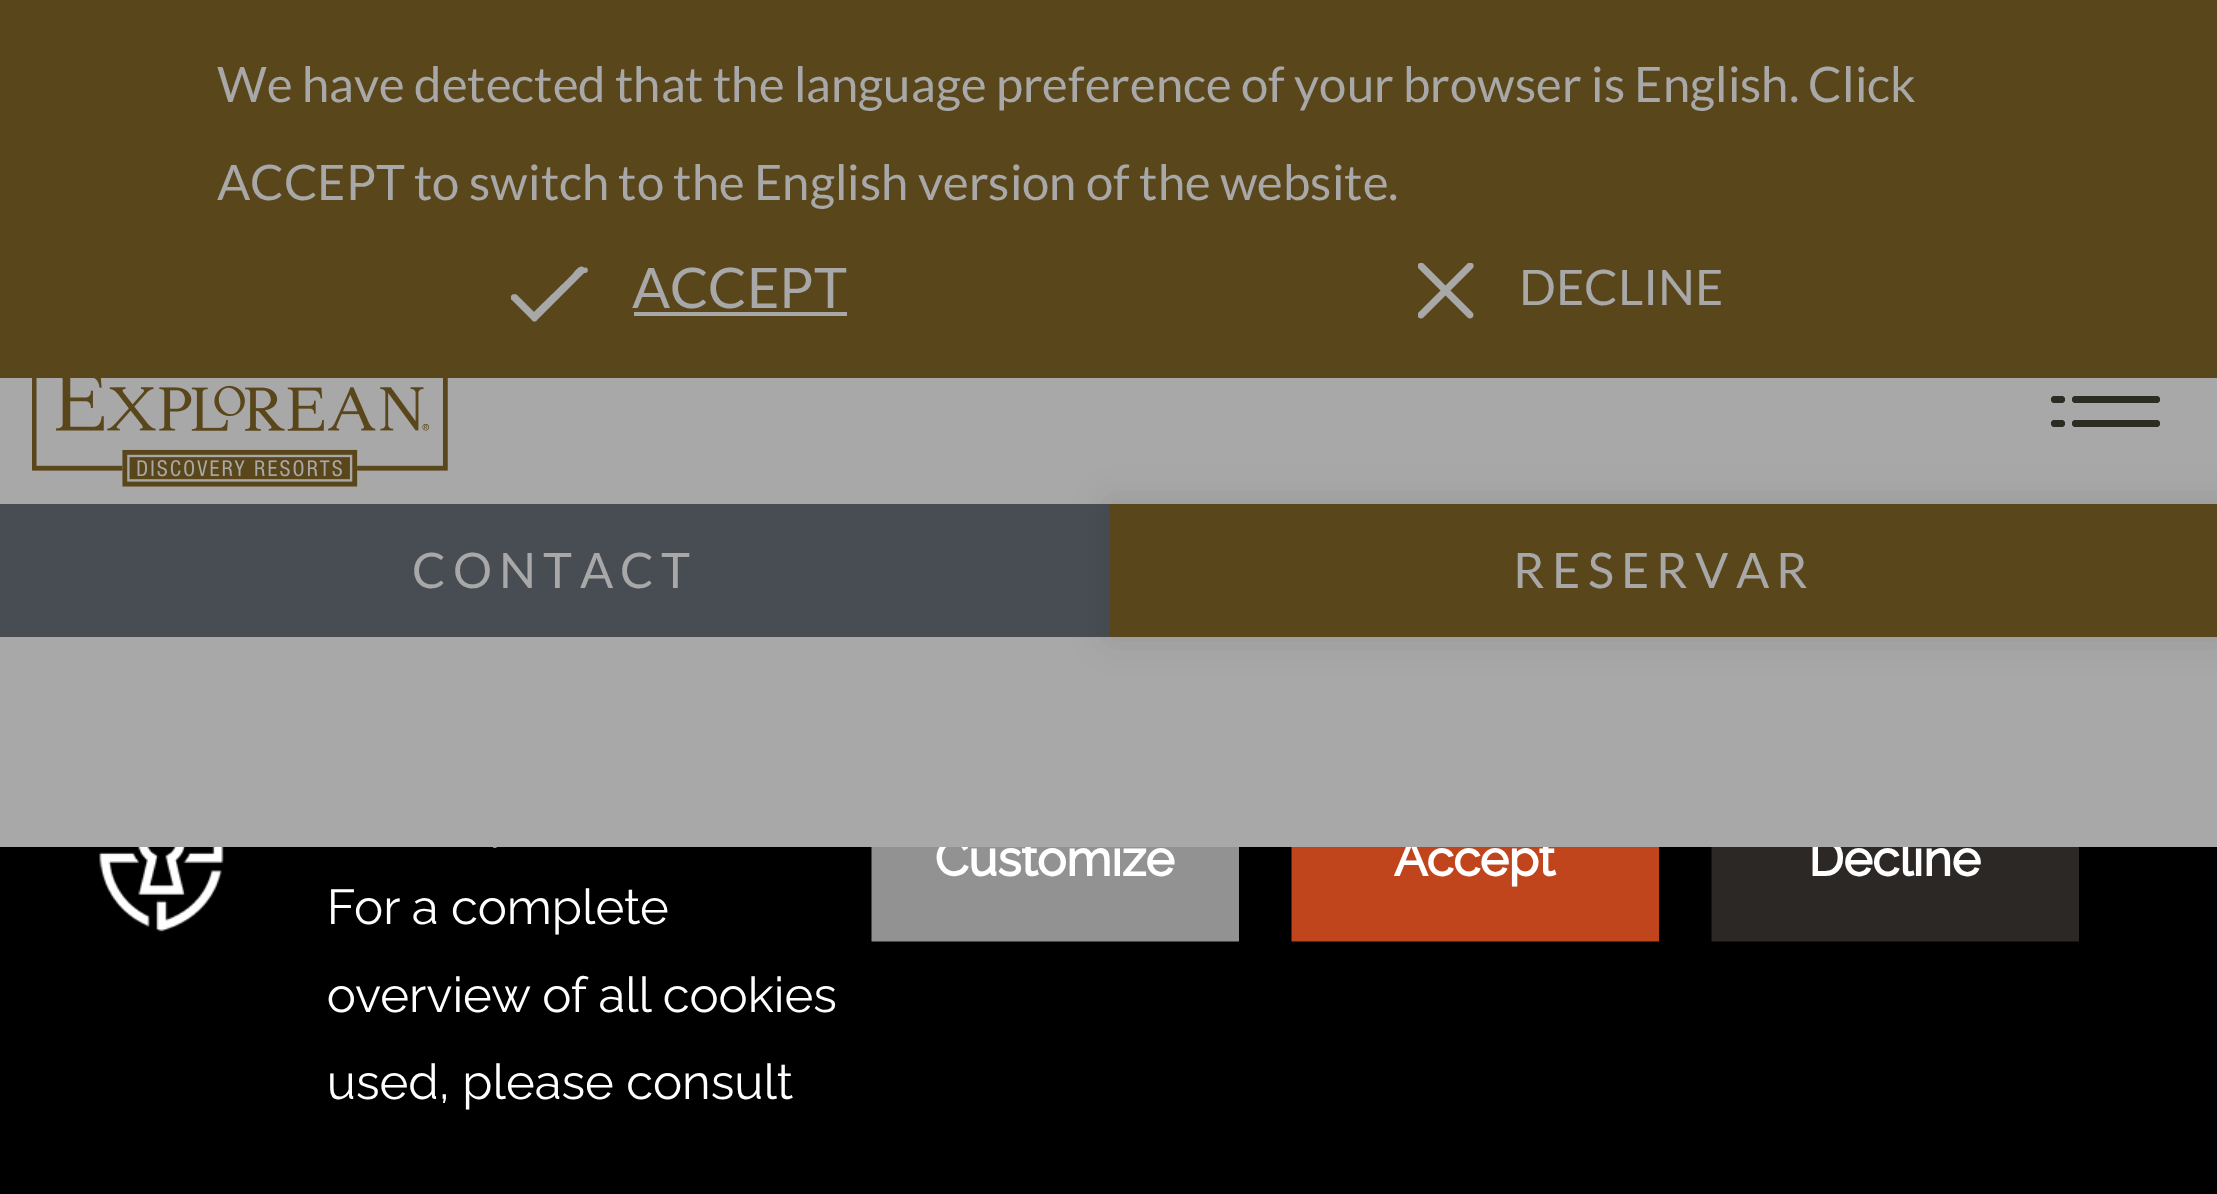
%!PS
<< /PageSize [2217 1194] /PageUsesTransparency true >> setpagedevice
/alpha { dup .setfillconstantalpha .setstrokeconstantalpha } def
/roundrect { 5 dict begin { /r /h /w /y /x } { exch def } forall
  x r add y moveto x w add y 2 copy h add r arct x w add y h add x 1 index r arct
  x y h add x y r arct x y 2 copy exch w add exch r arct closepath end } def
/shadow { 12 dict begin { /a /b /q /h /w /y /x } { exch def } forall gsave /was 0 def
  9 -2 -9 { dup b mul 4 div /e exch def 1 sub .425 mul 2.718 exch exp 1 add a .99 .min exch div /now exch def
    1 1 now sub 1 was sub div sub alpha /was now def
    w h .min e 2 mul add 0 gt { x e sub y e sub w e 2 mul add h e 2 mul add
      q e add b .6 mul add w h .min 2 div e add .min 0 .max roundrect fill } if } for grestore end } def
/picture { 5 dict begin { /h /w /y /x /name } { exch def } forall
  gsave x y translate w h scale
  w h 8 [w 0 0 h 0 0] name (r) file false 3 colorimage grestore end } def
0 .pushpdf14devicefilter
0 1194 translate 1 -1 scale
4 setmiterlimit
0.659 setgray
0 0 2217 1194 rectfill
0.353 0.275 0.106 setrgbcolor
0 0 2217 378 rectfill
/Lato-Regular [49 0 0 -49 0 0] selectfont
0.659 setgray
217 102 moveto (We have detected that the language preference of your browser is English. Click) show
217 200 moveto (ACCEPT to switch to the English version of the website.) show
gsave
511 266 77 56 rectclip
newpath 584 268 moveto 580 263 573 274 572 275 curveto 534 312 lineto 517 295 lineto 516 294 513 294 512 295 curveto 510 297 510 299 512 300 curveto 532 320 lineto 533 322 536 322 537 320 curveto 584 273 lineto 590 273 588 266 584 268 curveto closepath fill
grestore
/Lato-Regular [56 0 0 -56 0 0] selectfont
632 308 moveto (ACCEPT) show
634 312 213 4 rectfill
(img1.rgb) 1418 263 56 56 picture
/Lato-Regular [49 0 0 -49 0 0] selectfont
1519 305 moveto (DECLINE) show
(img2.rgb) 32 378 416 109 picture
0.176 0.173 0.133 setrgbcolor
2072 396 88 7 3.5 roundrect fill
2051 396 14 7 3.5 roundrect fill
2072 420 88 7 3.5 roundrect fill
2051 420 14 7 3.5 roundrect fill
0.278 0.302 0.322 setrgbcolor
0 504 1110 133 rectfill
0.659 setgray
412 588 moveto 7.25 0 (CONTACT) ashow
0 setgray
1110 504 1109 133 0 17.5 0.1 shadow
0.353 0.275 0.106 setrgbcolor
1110 504 1107 133 rectfill
0.659 setgray
1513 588 moveto 7.25 0 (RESERVAR) ashow
(img3.rgb) 0 847 2217 347 picture
.poppdf14devicefilter showpage
